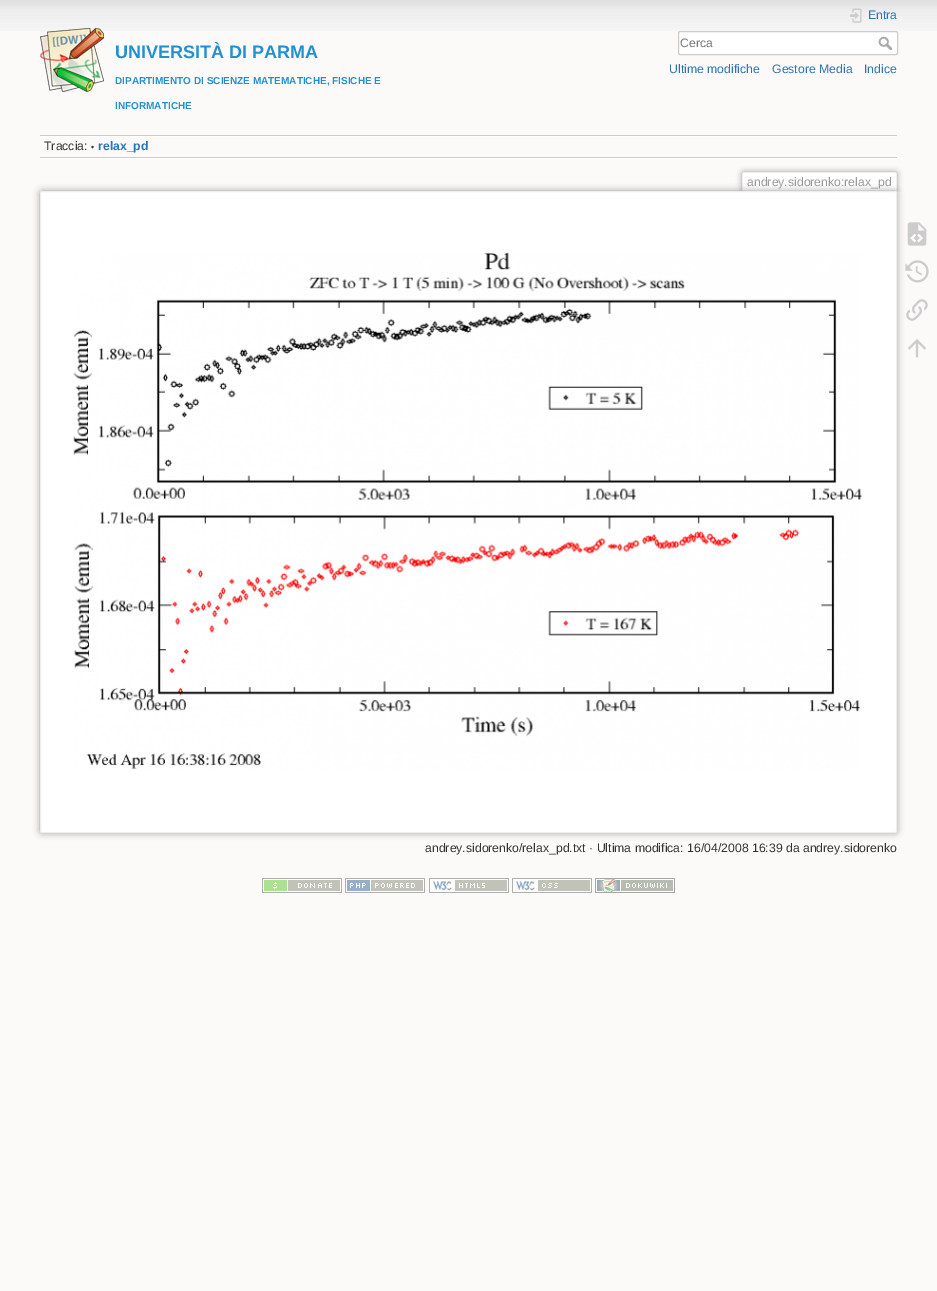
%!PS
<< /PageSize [937 1291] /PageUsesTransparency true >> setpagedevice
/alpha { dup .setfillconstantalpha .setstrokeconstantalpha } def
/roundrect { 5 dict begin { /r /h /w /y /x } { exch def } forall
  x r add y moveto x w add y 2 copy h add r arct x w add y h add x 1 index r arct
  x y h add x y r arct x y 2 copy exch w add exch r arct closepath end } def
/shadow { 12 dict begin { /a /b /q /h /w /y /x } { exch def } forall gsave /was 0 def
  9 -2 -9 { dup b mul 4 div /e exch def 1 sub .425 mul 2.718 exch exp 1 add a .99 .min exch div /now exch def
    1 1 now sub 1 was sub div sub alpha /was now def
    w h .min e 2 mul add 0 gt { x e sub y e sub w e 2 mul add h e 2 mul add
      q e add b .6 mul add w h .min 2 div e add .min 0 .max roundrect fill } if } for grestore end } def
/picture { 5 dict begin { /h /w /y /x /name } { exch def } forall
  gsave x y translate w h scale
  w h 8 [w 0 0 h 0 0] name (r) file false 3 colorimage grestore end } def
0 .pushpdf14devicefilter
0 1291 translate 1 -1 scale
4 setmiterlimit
0.984 0.98 0.976 setrgbcolor
0 0 937 1291 rectfill
(img1.rgb) 0 0 937 31 picture
(img2.rgb) 40 28 64 64 picture
/LiberationSans-Bold [18 0 0 -18 0 0] selectfont
0.125 0.565 0.816 setrgbcolor
115 58 moveto (UNIVERSITÀ DI PARMA) show
/LiberationSans-Bold [10 0 0 -10 0 0] selectfont
115 84 moveto (DIPARTIMENTO DI SCIENZE MATEMATICHE, FISICHE E) show
115 109 moveto (INFORMATICHE) show
(img3.rgb) 850 8 12 15 picture
/LiberationSans-Regular [12.25 0 0 -12.25 0 0] selectfont
0.169 0.451 0.718 setrgbcolor
868 19 moveto (Entra) show
1 setgray
678.5 31.5 219 23 1.5 roundrect gsave fill grestore
0.8 setgray
stroke
0.459 setgray
680 47 moveto (Cerca) show
(img4.rgb) 878 36 14 14 picture
0.169 0.451 0.718 setrgbcolor
669 73 moveto (Ultime modifiche) show
772 73 moveto (Gestore Media) show
864 73 moveto (Indice) show
0.8 setgray
40 135 857 1 rectfill
1 setgray
40 158 857 1 rectfill
40 136 857 1 rectfill
0.8 setgray
40 157 857 1 rectfill
0.2 setgray
44 150 moveto (Traccia:) show
/LiberationSans-Regular [9 0 0 -9 0 0] selectfont
91 150 moveto (•) show
/LiberationSans-Bold [12.25 0 0 -12.25 0 0] selectfont
0.169 0.451 0.718 setrgbcolor
98 150 moveto (relax_pd) show
gsave
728 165 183 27 rectclip
0.6 setgray
742 172 155 20 2 3 1 shadow
grestore
1 setgray
newpath 744 173 moveto 895 173 lineto 895.5 173 896 173.5 896 174 curveto 896 192 lineto 743 192 lineto 743 174 lineto 743 173.5 743.5 173 744 173 curveto closepath fill
0.933 setgray
743 172 153 1 rectfill
896 173 1 19 rectfill
742 173 1 19 rectfill
/LiberationSans-Regular [12.25 0 0 -12.25 0 0] selectfont
0.6 setgray
747 186 moveto (andrey.sidorenko:relax_pd) show
40 191 857 642 2 3.5 1 shadow
1 setgray
40.5 191.5 856 641 1.5 roundrect gsave fill grestore
0.933 setgray
stroke
(img5.rgb) 73 252 789 518 picture
0.2 setgray
425 852 moveto (andrey.sidorenko/relax_pd.txt · Ultima modifica: 16/04/2008 16:39 da andrey.sidorenko) show
(img6.rgb) 907 222 20 24 picture
(img7.rgb) 905 260 24 23 picture
(img8.rgb) 906 299 22 22 picture
(img9.rgb) 908 339 18 19 picture
(img10.rgb) 262 878 80 15 picture
(img11.rgb) 345 878 80 15 picture
(img12.rgb) 429 878 80 15 picture
(img13.rgb) 512 878 80 15 picture
(img14.rgb) 595 878 80 15 picture
.poppdf14devicefilter showpage
